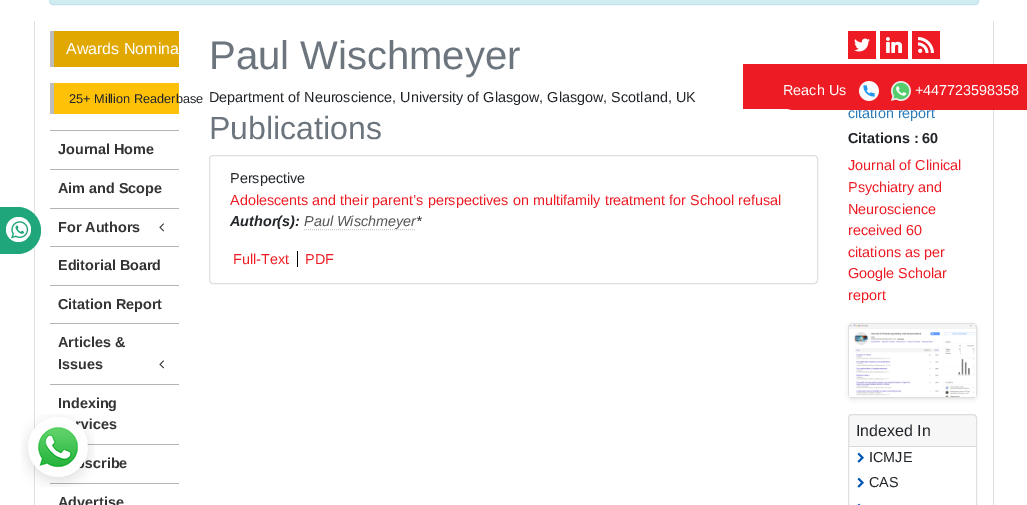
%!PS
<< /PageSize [1027 505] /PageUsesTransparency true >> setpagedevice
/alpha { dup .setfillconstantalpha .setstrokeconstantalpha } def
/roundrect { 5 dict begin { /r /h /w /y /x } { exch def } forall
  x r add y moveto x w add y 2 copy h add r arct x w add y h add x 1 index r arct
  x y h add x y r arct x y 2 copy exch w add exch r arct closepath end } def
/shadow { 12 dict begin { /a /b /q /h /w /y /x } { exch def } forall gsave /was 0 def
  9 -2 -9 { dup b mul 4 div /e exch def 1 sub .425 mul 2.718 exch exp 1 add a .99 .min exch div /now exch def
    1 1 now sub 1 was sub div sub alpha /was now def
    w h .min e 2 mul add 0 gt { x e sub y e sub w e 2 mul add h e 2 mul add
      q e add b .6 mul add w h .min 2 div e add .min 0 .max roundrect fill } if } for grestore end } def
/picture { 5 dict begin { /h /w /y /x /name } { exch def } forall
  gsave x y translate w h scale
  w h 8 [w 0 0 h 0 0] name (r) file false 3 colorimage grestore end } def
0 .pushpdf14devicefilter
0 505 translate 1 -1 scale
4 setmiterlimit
1 setgray
0 0 1027 505 rectfill
0.82 0.925 0.945 setrgbcolor
49.5 -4.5 929 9 3.5 roundrect gsave fill grestore
0.745 0.898 0.922 setrgbcolor
stroke
0.878 setgray
993 21 1 484 rectfill
34 21 1 484 rectfill
0.878 0.659 0 setrgbcolor
54 31 125 36 rectfill
0.741 setgray
50 31 4 36 rectfill
/LiberationSans-Regular [16 0 0 -16 0 0] selectfont
1 setgray
66 54 moveto (Awards Nomina) show
1 0.757 0.027 setrgbcolor
54 83 125 31 rectfill
0.741 setgray
50 83 4 31 rectfill
/LiberationSans-Regular [12.75 0 0 -12.75 0 0] selectfont
0.129 0.145 0.161 setrgbcolor
69 103 moveto (25+ Million Readerbase) show
0.702 setgray
50 130 129 1 rectfill
/LiberationSans-Bold [14.4 0 0 -14.4 0 0] selectfont
0.2 setgray
58 154 moveto (Journal Home) show
0.702 setgray
50 169 129 1 rectfill
0.2 setgray
58 193 moveto (Aim and Scope) show
0.702 setgray
50 208 129 1 rectfill
0.2 setgray
58 232 moveto (For Authors) show
(img1.rgb) 159 223 5 9 picture
0.702 setgray
50 246 129 1 rectfill
0.2 setgray
58 270 moveto (Editorial Board) show
0.702 setgray
50 285 129 1 rectfill
0.2 setgray
58 309 moveto (Citation Report) show
0.702 setgray
50 323 129 1 rectfill
0.2 setgray
58 347 moveto (Articles &) show
58 369 moveto (Issues) show
(img1.rgb) 159 360 5 9 picture
0.702 setgray
50 384 129 1 rectfill
0.2 setgray
58 408 moveto (Indexing) show
75 429 moveto (rvices) show
0.702 setgray
87 444 92 1 rectfill
0.2 setgray
85 468 moveto (scribe) show
0.702 setgray
50 483 129 1 rectfill
0.2 setgray
58 507 moveto (Advertise) show
/LiberationSans-Regular [40 0 0 -40 0 0] selectfont
0.424 0.459 0.49 setrgbcolor
209 69 moveto (Paul Wischmeyer) show
/LiberationSans-Regular [14.4 0 0 -14.4 0 0] selectfont
0.129 0.145 0.161 setrgbcolor
209 102 moveto (Department of Neuroscience, University of Glasgow, Glasgow, Scotland, UK) show
/LiberationSans-Regular [32 0 0 -32 0 0] selectfont
0.424 0.459 0.49 setrgbcolor
209 139 moveto (Publications) show
0.875 setgray
209.5 155.5 608 128 3.5 roundrect stroke
/LiberationSans-Regular [14.4 0 0 -14.4 0 0] selectfont
0.129 0.145 0.161 setrgbcolor
230 183 moveto (Perspective) show
0.929 0.11 0.141 setrgbcolor
230 205 moveto (Adolescents and their parent’s perspectives on multifamily treatment for School refusal) show
/LiberationSans-BoldItalic [14.4 0 0 -14.4 0 0] selectfont
0.129 0.145 0.161 setrgbcolor
230 226 moveto (Author\(s\):) show
/LiberationSans-Italic [14.4 0 0 -14.4 0 0] selectfont
0.333 setgray
304 226 moveto (Paul Wischmeyer) show
0.8 setgray
[1 1] 0 setdash
newpath 304 229.5 moveto 416 229.5 lineto stroke
0.129 0.145 0.161 setrgbcolor
416 226 moveto (*) show
0 setgray
297 251 1 16 rectfill
/LiberationSans-Regular [14.4 0 0 -14.4 0 0] selectfont
0.929 0.11 0.141 setrgbcolor
233 264 moveto (Full-Text) show
305 264 moveto (PDF) show
0.933 0.102 0.141 setrgbcolor
848 31 28 28 rectfill
(img2.rgb) 854 38 16 14 picture
880 31 28 28 rectfill
(img3.rgb) 886 37 16 16 picture
912 31 28 28 rectfill
(img4.rgb) 918 37 16 16 picture
0.169 0.482 0.725 setrgbcolor
848 118 moveto (citation report) show
/LiberationSans-Bold [14.4 0 0 -14.4 0 0] selectfont
0.129 0.145 0.161 setrgbcolor
848 143 moveto (Citations : 60) show
/LiberationSans-Regular [14.4 0 0 -14.4 0 0] selectfont
0.929 0.11 0.141 setrgbcolor
848 170 moveto (Journal of Clinical) show
848 192 moveto (Psychiatry and) show
848 214 moveto (Neuroscience) show
848 235 moveto (received 60) show
848 257 moveto (citations as per) show
848 278 moveto (Google Scholar) show
848 300 moveto (report) show
0 setgray
848 325 129 75 4 2 0.07 shadow
0.875 setgray
[] 0 setdash
848.5 323.5 128 74 3.5 roundrect stroke
(img5.rgb) 849 324 127 73 picture
848.5 414.5 128 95 3.5 roundrect stroke
0.03 alpha
0 setgray
849 415 127 31 rectfill
1 alpha
0.847 setgray
849 446 127 1 rectfill
/LiberationSans-Regular [16 0 0 -16 0 0] selectfont
0.129 0.145 0.161 setrgbcolor
856 436 moveto (Indexed In) show
(img6.rgb) 857 452 7 11 picture
/LiberationSans-Regular [14.4 0 0 -14.4 0 0] selectfont
869 462 moveto (ICMJE) show
(img6.rgb) 857 477 7 11 picture
869 487 moveto (CAS) show
(img7.rgb) 857 503 4 2 picture
0.929 0.11 0.141 setrgbcolor
newpath 794 72 moveto 1026 72 lineto 1026.5 72 1027 72.5 1027 73 curveto 1027 109 lineto 1027 109.5 1026.5 110 1026 110 curveto 794 110 lineto 783.5 110 775 101.5 775 91 curveto 775 80.5 783.5 72 794 72 curveto closepath fill
743 64 284 45 rectfill
1 setgray
783 95 moveto (Reach Us) show
(img8.rgb) 859 81 20 20 picture
(img9.rgb) 891 81 20 20 picture
915 95 moveto (+447723598358) show
0.122 0.651 0.478 setrgbcolor
newpath -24 207 moveto 17.5 207 lineto 30.5 207 41 217.5 41 230.5 curveto 41 243.5 30.5 254 17.5 254 curveto -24 254 lineto closepath fill
1 setgray
newpath 18.5 229.5 12.5 0 360 arc closepath fill
(img10.rgb) 11 221 18 18 picture
(img11.rgb) 21 414 74 73 picture
.poppdf14devicefilter showpage
